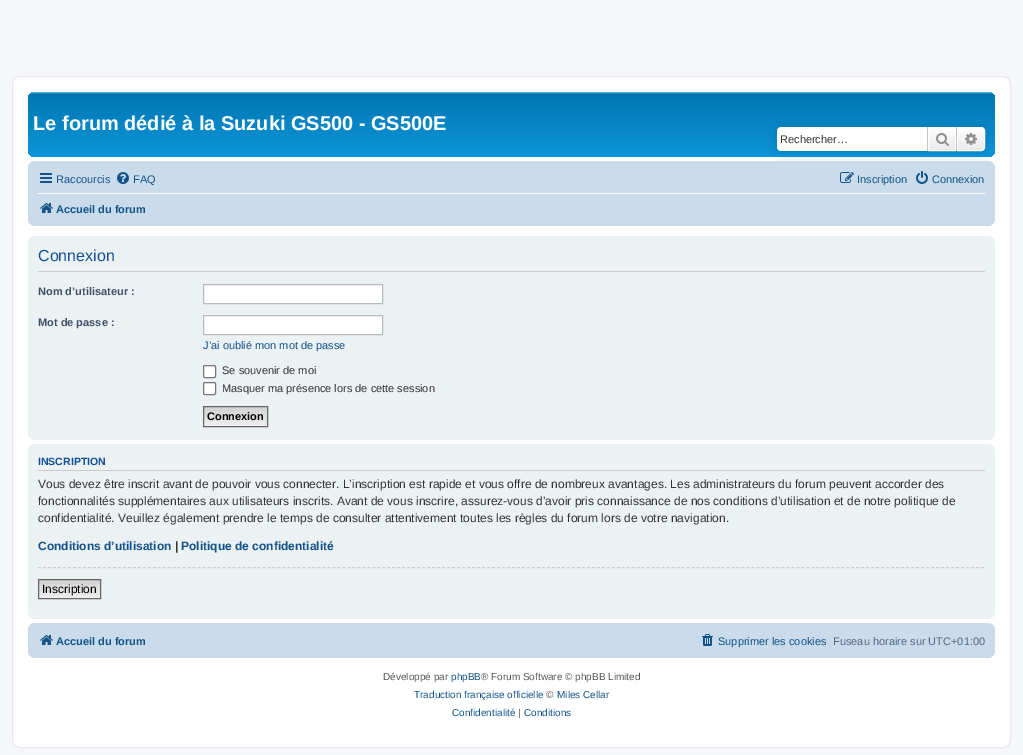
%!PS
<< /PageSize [1023 755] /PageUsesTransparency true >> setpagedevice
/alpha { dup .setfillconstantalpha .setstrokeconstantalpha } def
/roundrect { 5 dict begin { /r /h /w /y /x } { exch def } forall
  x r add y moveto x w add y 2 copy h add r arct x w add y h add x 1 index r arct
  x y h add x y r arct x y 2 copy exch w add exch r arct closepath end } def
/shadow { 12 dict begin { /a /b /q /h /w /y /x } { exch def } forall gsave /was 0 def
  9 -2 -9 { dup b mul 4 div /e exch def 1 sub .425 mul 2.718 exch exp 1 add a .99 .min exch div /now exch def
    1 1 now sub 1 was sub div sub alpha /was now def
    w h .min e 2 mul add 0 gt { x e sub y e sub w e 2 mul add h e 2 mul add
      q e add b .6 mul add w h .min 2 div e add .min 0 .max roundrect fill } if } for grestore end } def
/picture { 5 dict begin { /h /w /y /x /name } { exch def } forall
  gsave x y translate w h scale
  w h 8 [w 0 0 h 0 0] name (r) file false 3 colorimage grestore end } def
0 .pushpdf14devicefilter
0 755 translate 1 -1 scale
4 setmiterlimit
0.961 0.969 0.98 setrgbcolor
0 0 1023 755 rectfill
1 setgray
12.5 76.5 998 671 7.5 roundrect gsave fill grestore
0.902 0.914 0.929 setrgbcolor
stroke
gsave 28 92 967 65 7 roundrect clip newpath
<< /ShadingType 2 /ColorSpace /DeviceRGB /Coords [512 92 512 184] /Extend [true true] /Function << /FunctionType 3 /Domain [0 1] /Functions [<< /FunctionType 2 /Domain [0 1] /C0 [0.416 0.808 1] /C1 [0 0.463 0.694] /N 1 >> << /FunctionType 2 /Domain [0 1] /C0 [0 0.463 0.694] /C1 [0.071 0.639 0.922] /N 1 >>] /Bounds [0.02] /Encode [0 1 0 1] >> >> shfill grestore
/LiberationSans-Bold [20 0 0 -20 0 0] selectfont
1 setgray
33 130 moveto (Le forum dédié à la Suzuki GS500 - GS500E) show
0.792 0.863 0.922 setrgbcolor
28 161 967 65 7 roundrect fill
0 0.459 0.69 setrgbcolor
777 127 208 24 4 5 1 shadow
1 setgray
newpath 781 127 moveto 927 127 lineto 927 151 lineto 781 151 lineto 779 151 777 149 777 147 curveto 777 131 lineto 777 129 779 127 781 127 curveto closepath fill
/LiberationSans-Regular [11 0 0 -11 0 0] selectfont
0.2 setgray
780 143 moveto (Rechercher…) show
gsave newpath 929 128 moveto 955 128 lineto 955 150 lineto 929 150 lineto closepath clip newpath
<< /ShadingType 2 /ColorSpace /DeviceRGB /Coords [942 127 942 151] /Extend [true true] /Function << /FunctionType 2 /Domain [0 1] /C0 [1 1 1] /C1 [0.914 0.914 0.914] /N 1 >> >> shfill grestore
1 setgray
928.5 127.5 27 23 rectstroke
0.78 0.765 0.749 setrgbcolor
956 127 1 24 rectfill
927 127 1 24 rectfill
(img1.rgb) 936 133 13 13 picture
gsave newpath 957.5 127.5 moveto 981 127.5 lineto 983 127.5 984.5 129 984.5 131 curveto 984.5 147 lineto 984.5 149 983 150.5 981 150.5 curveto 957.5 150.5 lineto closepath clip newpath
<< /ShadingType 2 /ColorSpace /DeviceRGB /Coords [971 127 971 151] /Extend [true true] /Function << /FunctionType 2 /Domain [0 1] /C0 [1 1 1] /C1 [0.914 0.914 0.914] /N 1 >> >> shfill grestore
1 setgray
newpath 957.5 127.5 moveto 981 127.5 lineto 983 127.5 984.5 129 984.5 131 curveto 984.5 147 lineto 984.5 149 983 150.5 981 150.5 curveto 957.5 150.5 lineto closepath stroke
(img2.rgb) 965 133 12 12 picture
(img3.rgb) 40 173 12 10 picture
0.063 0.322 0.537 setrgbcolor
56 183 moveto (Raccourcis) show
(img4.rgb) 117 172 12 12 picture
133 183 moveto (FAQ) show
(img5.rgb) 840 172 14 11 picture
857 183 moveto (Inscription) show
(img6.rgb) 916 171 12 13 picture
932 183 moveto (Connexion) show
1 setgray
38 193 947 1 rectfill
(img7.rgb) 40 203 13 10 picture
/LiberationSans-Bold [11 0 0 -11 0 0] selectfont
0.063 0.322 0.537 setrgbcolor
56 213 moveto (Accueil du forum) show
0.925 0.945 0.953 setrgbcolor
28 236 967 204 7 roundrect fill
0.8 setgray
38 271 947 1 rectfill
/LiberationSans-Regular [16 0 0 -16 0 0] selectfont
0.067 0.314 0.596 setrgbcolor
38 261 moveto (Connexion) show
/LiberationSans-Bold [11 0 0 -11 0 0] selectfont
0.259 0.314 0.404 setrgbcolor
38 295 moveto (Nom d’utilisateur :) show
1 setgray
newpath 203.5 284.5 moveto 382.5 284.5 lineto 382.5 303.5 lineto 203.5 303.5 lineto closepath gsave fill grestore
0.706 0.729 0.753 setrgbcolor
stroke
0.259 0.314 0.404 setrgbcolor
38 326 moveto (Mot de passe :) show
1 setgray
newpath 203.5 315.5 moveto 382.5 315.5 lineto 382.5 334.5 lineto 203.5 334.5 lineto closepath gsave fill grestore
0.706 0.729 0.753 setrgbcolor
stroke
/LiberationSans-Regular [11 0 0 -11 0 0] selectfont
0.063 0.322 0.537 setrgbcolor
203 349 moveto (J’ai oublié mon mot de passe) show
1 setgray
203.5 365.5 12 12 1.5 roundrect gsave fill grestore
0.463 setgray
stroke
0.2 setgray
222 374 moveto (Se souvenir de moi) show
1 setgray
203.5 382.5 12 12 1.5 roundrect gsave fill grestore
0.463 setgray
stroke
0.2 setgray
222 392 moveto (Masquer ma présence lors de cette session) show
gsave newpath 204 407 moveto 267 407 lineto 267 426 lineto 204 426 lineto closepath clip newpath
<< /ShadingType 2 /ColorSpace /DeviceRGB /Coords [236 407 236 426] /Extend [true true] /Function << /FunctionType 2 /Domain [0 1] /C0 [0.824 0.824 0.824] /C1 [0.937 0.937 0.937] /N 1 >> >> shfill grestore
0.4 setgray
203.5 406.5 64 20 rectstroke
/LiberationSans-Bold [11 0 0 -11 0 0] selectfont
0 setgray
207 420 moveto (Connexion) show
0.925 0.945 0.953 setrgbcolor
28 444 967 175 7 roundrect fill
0.8 setgray
38 470 947 1 rectfill
/LiberationSans-Bold [10.5 0 0 -10.5 0 0] selectfont
0.067 0.314 0.596 setrgbcolor
38 465 moveto (INSCRIPTION) show
/LiberationSans-Regular [12 0 0 -12 0 0] selectfont
0.2 setgray
38 488 moveto (Vous devez être inscrit avant de pouvoir vous connecter. L’inscription est rapide et vous offre de nombreux avantages. Les administrateurs du forum peuvent accorder des) show
38 505 moveto (fonctionnalités supplémentaires aux utilisateurs inscrits. Avant de vous inscrire, assurez-vous d’avoir pris connaissance de nos conditions d’utilisation et de notre politique de) show
38 522 moveto (confidentialité. Veuillez également prendre le temps de consulter attentivement toutes les règles du forum lors de votre navigation.) show
/LiberationSans-Bold [12 0 0 -12 0 0] selectfont
0.063 0.322 0.537 setrgbcolor
38 550 moveto (Conditions d’utilisation) show
0.2 setgray
175 550 moveto (|) show
0.063 0.322 0.537 setrgbcolor
181 550 moveto (Politique de confidentialité) show
0.8 setgray
[3 1.99] 0 setdash
newpath 38 567.5 moveto 985 567.5 lineto stroke
gsave newpath 39 580 moveto 100 580 lineto 100 598 lineto 39 598 lineto closepath clip newpath
<< /ShadingType 2 /ColorSpace /DeviceRGB /Coords [70 580 70 598] /Extend [true true] /Function << /FunctionType 2 /Domain [0 1] /C0 [0.824 0.824 0.824] /C1 [0.937 0.937 0.937] /N 1 >> >> shfill grestore
0.4 setgray
[] 0 setdash
38.5 579.5 62 19 rectstroke
/LiberationSans-Regular [12 0 0 -12 0 0] selectfont
0 setgray
42 593 moveto (Inscription) show
0.792 0.863 0.922 setrgbcolor
28 623 967 35 7 roundrect fill
(img7.rgb) 40 635 13 10 picture
/LiberationSans-Bold [11 0 0 -11 0 0] selectfont
0.063 0.322 0.537 setrgbcolor
56 645 moveto (Accueil du forum) show
(img8.rgb) 702 634 11 12 picture
/LiberationSans-Regular [11 0 0 -11 0 0] selectfont
718 645 moveto (Supprimer les cookies) show
0.325 0.392 0.51 setrgbcolor
833 645 moveto (Fuseau horaire sur UTC+01:00) show
/LiberationSans-Regular [10 0 0 -10 0 0] selectfont
0.333 setgray
383 680 moveto (Développé par) show
0.063 0.322 0.537 setrgbcolor
451 680 moveto (phpBB) show
0.333 setgray
481 680 moveto (® Forum Software © phpBB Limited) show
0.063 0.322 0.537 setrgbcolor
414 698 moveto (Traduction française officielle) show
0.333 setgray
546 698 moveto (©) show
0.063 0.322 0.537 setrgbcolor
557 698 moveto (Miles Cellar) show
452 716 moveto (Confidentialité) show
0.333 setgray
518 716 moveto (|) show
0.063 0.322 0.537 setrgbcolor
524 716 moveto (Conditions) show
.poppdf14devicefilter showpage
